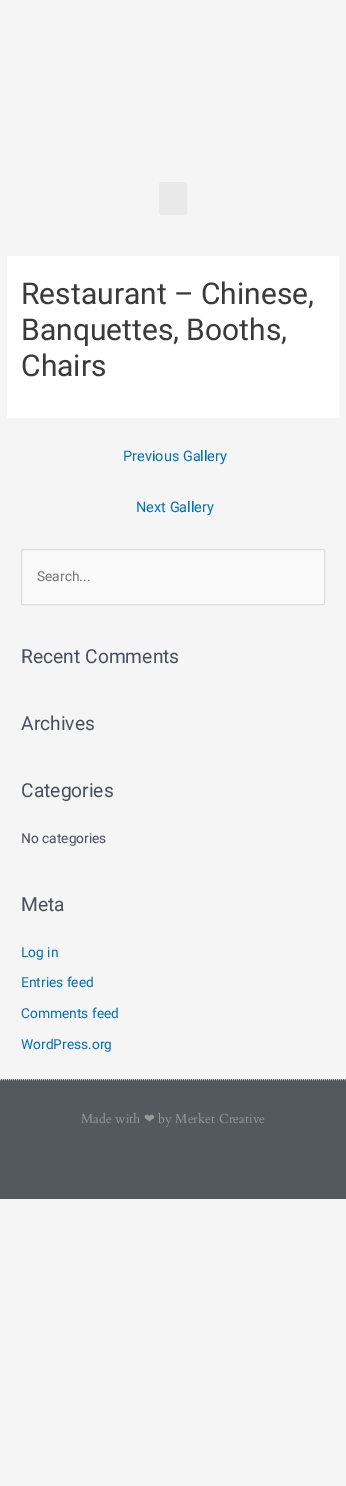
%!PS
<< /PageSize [346 1486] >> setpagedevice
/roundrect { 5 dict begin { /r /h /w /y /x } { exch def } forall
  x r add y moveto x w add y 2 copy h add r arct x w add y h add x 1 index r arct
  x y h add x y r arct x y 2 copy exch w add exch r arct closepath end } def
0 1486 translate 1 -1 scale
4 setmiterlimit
0.961 setgray
0 0 346 1486 rectfill
0.914 setgray
159 182 28 33 3 roundrect fill
1 setgray
7 256 332 162 rectfill
/Roboto-Regular [30 0 0 -30 0 0] selectfont
0.227 setgray
21 304 moveto (Restaurant – Chinese,) show
21 340 moveto (Banquettes, Booths,) show
21 376 moveto (Chairs) show
/Roboto-Regular [14.5 0 0 -14.5 0 0] selectfont
0.004 0.439 0.725 setrgbcolor
123 461 moveto (Previous Gallery) show
136 512 moveto (Next Gallery) show
0.98 setgray
21.5 549.5 303 55 1.5 roundrect gsave fill grestore
0.867 setgray
stroke
/Roboto-Regular [13.75 0 0 -13.75 0 0] selectfont
0.459 setgray
37 581 moveto (Search...) show
/Roboto-Regular [19.25 0 0 -19.25 0 0] selectfont
0.294 0.31 0.345 setrgbcolor
21 663 moveto (Recent Comments) show
21 730 moveto (Archives) show
21 797 moveto (Categories) show
/Roboto-Regular [13.75 0 0 -13.75 0 0] selectfont
21 843 moveto (No categories) show
/Roboto-Regular [19.25 0 0 -19.25 0 0] selectfont
21 911 moveto (Meta) show
/Roboto-Regular [13.75 0 0 -13.75 0 0] selectfont
0.004 0.439 0.725 setrgbcolor
21 957 moveto (Log in) show
21 987 moveto (Entries feed) show
21 1018 moveto (Comments feed) show
21 1049 moveto (WordPress.org) show
0.329 0.349 0.373 setrgbcolor
0 1079 346 120 rectfill
0.839 setgray
[1 1] 0 setdash
newpath 0 1079.5 moveto 346 1079.5 lineto stroke
/Cardo-Regular [13 0 0 -13 0 0] selectfont
0.592 0.604 0.616 setrgbcolor
81 1123 moveto (Made with) show
/DejaVuSans-Regular [13 0 0 -13 0 0] selectfont
144 1123 moveto (❤) show
/Cardo-Regular [13 0 0 -13 0 0] selectfont
158 1123 moveto (by Merket Creative) show
showpage
